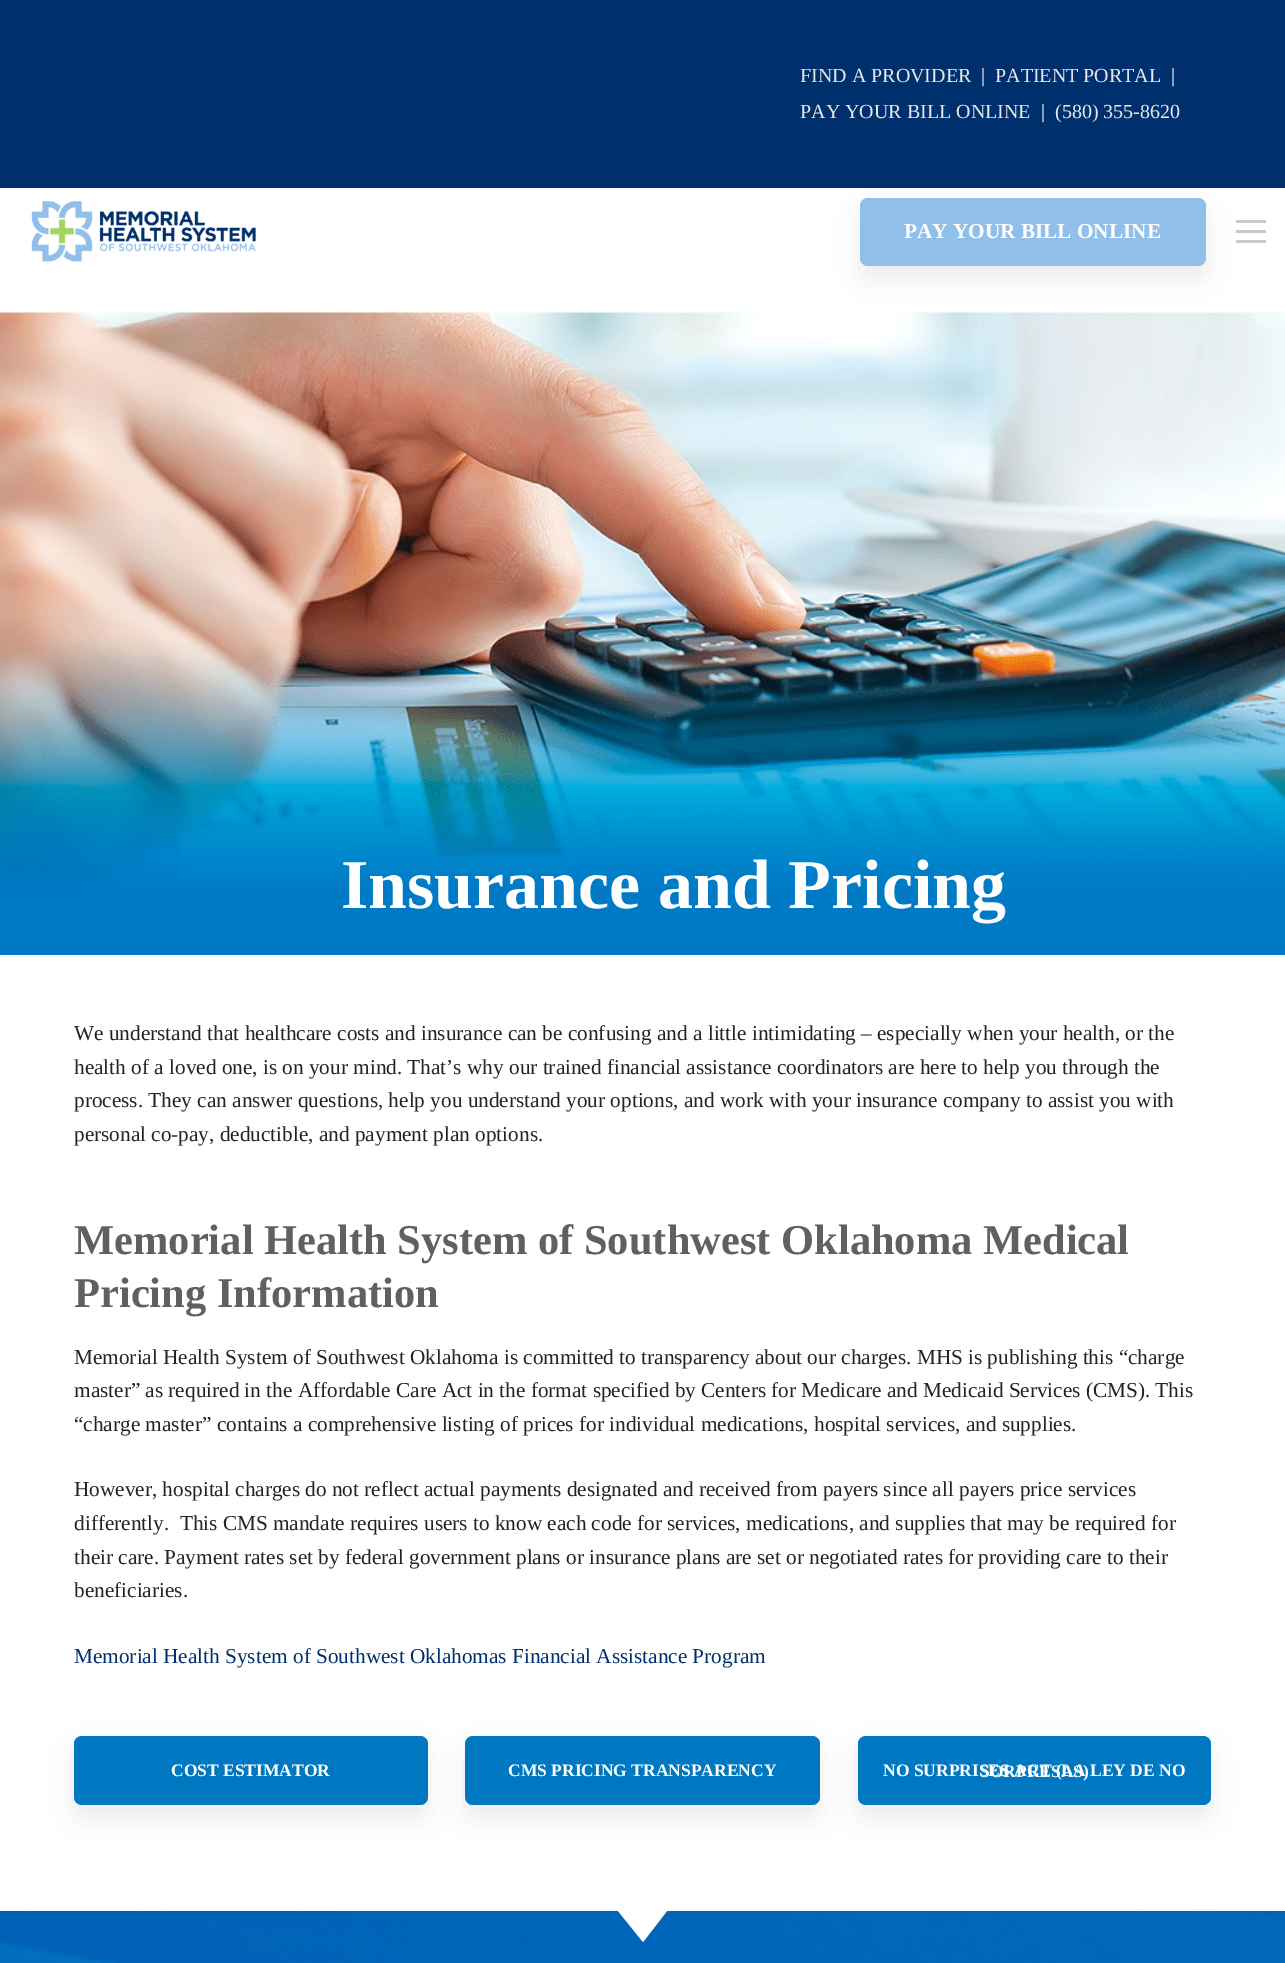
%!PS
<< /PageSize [1285 1963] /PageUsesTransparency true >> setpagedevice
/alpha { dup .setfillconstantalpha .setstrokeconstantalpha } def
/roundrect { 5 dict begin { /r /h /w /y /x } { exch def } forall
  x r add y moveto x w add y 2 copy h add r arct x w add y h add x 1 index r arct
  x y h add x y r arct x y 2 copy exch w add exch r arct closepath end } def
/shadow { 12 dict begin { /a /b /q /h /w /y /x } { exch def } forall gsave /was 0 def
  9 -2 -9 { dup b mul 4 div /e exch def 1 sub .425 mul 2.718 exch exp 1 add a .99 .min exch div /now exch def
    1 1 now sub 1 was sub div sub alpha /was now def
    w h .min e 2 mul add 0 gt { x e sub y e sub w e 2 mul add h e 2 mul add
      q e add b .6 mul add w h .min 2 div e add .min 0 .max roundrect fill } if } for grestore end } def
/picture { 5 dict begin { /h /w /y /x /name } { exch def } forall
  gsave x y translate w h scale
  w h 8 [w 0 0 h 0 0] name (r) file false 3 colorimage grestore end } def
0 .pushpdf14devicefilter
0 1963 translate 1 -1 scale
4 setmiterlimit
1 setgray
0 0 1285 1963 rectfill
0 0.184 0.427 setrgbcolor
0 0 1285 188 rectfill
/LiberationSerif-Regular [20 0 0 -20 0 0] selectfont
0.91 setgray
800 82 moveto (FIND A PROVIDER) show
1 setgray
981 82 moveto (|) show
0.91 setgray
995 82 moveto (PATIENT PORTAL) show
1 setgray
1171 82 moveto (|) show
0.91 setgray
800 118 moveto (PAY YOUR BILL ONLINE) show
1 setgray
1041 118 moveto (|) show
0.91 setgray
1055 118 moveto (\(580\) 355-8620) show
(img1.rgb) 31 201 226 61 picture
(img2.rgb) 0 312 1285 643 picture
0 setgray
860 210 346 69 8 12.5 0.07 shadow
0.565 0.749 0.914 setrgbcolor
860 198 346 68 8 roundrect fill
/LiberationSerif-Bold [21.25 0 0 -21.25 0 0] selectfont
1 setgray
904 238 moveto (PAY YOUR BILL ONLINE) show
0.788 setgray
1236 230 30 3 rectfill
1236 220 30 3 rectfill
1236 240 30 3 rectfill
/LiberationSerif-Bold [70 0 0 -70 0 0] selectfont
1 setgray
341 908 moveto (Insurance and Pricing) show
/LiberationSerif-Regular [21.25 0 0 -21.25 0 0] selectfont
0.137 setgray
74 1040 moveto (We understand that healthcare costs and insurance can be confusing and a little intimidating – especially when your health, or the) show
74 1074 moveto (health of a loved one, is on your mind. That’s why our trained financial assistance coordinators are here to help you through the) show
74 1107 moveto (process. They can answer questions, help you understand your options, and work with your insurance company to assist you with) show
74 1141 moveto (personal co-pay, deductible, and payment plan options.) show
/LiberationSerif-Bold [42.5 0 0 -42.5 0 0] selectfont
0.376 setgray
74 1254 moveto (Memorial Health System of Southwest Oklahoma Medical) show
74 1307 moveto (Pricing Information) show
/LiberationSerif-Regular [21.25 0 0 -21.25 0 0] selectfont
0.137 setgray
74 1364 moveto (Memorial Health System of Southwest Oklahoma is committed to transparency about our charges. MHS is publishing this “charge) show
74 1397 moveto (master” as required in the Affordable Care Act in the format specified by Centers for Medicare and Medicaid Services \(CMS\). This) show
74 1431 moveto (“charge master” contains a comprehensive listing of prices for individual medications, hospital services, and supplies.) show
74 1496 moveto (However, hospital charges do not reflect actual payments designated and received from payers since all payers price services) show
74 1530 moveto (differently.  This CMS mandate requires users to know each code for services, medications, and supplies that may be required for) show
74 1564 moveto (their care. Payment rates set by federal government plans or insurance plans are set or negotiated rates for providing care to their) show
74 1597 moveto (beneficiaries.) show
0 0.184 0.427 setrgbcolor
74 1663 moveto (Memorial Health System of Southwest Oklahomas Financial Assistance Program) show
0 setgray
74 1749 354 69 8 12.5 0.07 shadow
0 0.471 0.757 setrgbcolor
74 1736 354 69 8 roundrect fill
/LiberationSerif-Bold [17.5 0 0 -17.5 0 0] selectfont
1 setgray
171 1776 moveto (COST ESTIMATOR) show
0 setgray
465 1749 355 69 8 12.5 0.07 shadow
0 0.471 0.757 setrgbcolor
465 1736 355 69 8 roundrect fill
1 setgray
508 1776 moveto (CMS PRICING TRANSPARENCY) show
0 setgray
858 1749 353 69 8 12.5 0.07 shadow
0 0.471 0.757 setrgbcolor
858 1736 353 69 8 roundrect fill
1 setgray
883 1776 moveto (NO SURPRISES ACT \(LA LEY DE NO) show
980 1777 moveto (SORPRESAS\)) show
(img3.rgb) 0 1911 1285 52 picture
newpath 667 1911 moveto 643 1942 lineto 618 1911 lineto 643 1911 lineto closepath fill
.poppdf14devicefilter showpage
